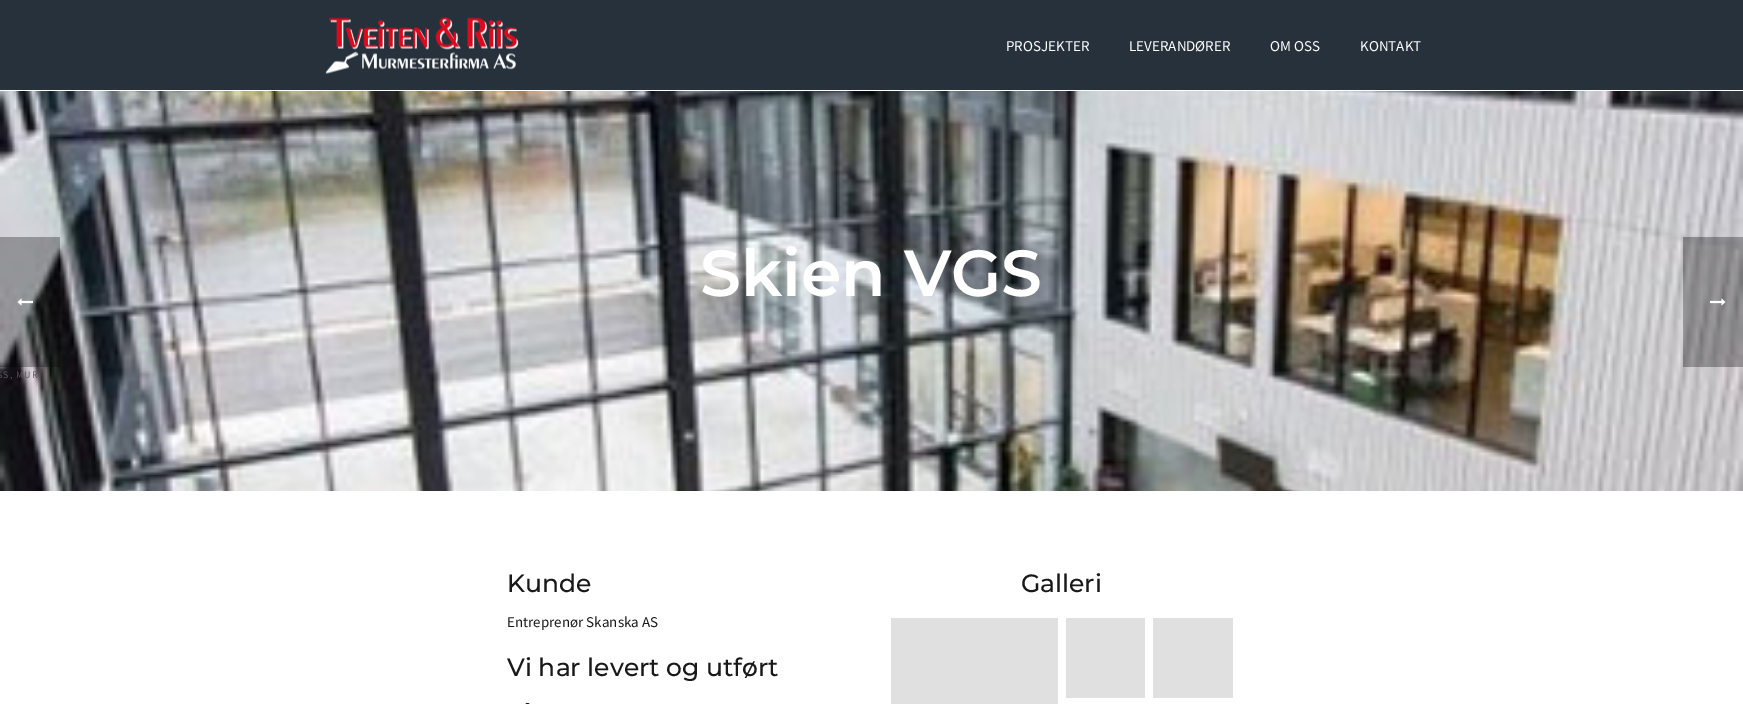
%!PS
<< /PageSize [1743 704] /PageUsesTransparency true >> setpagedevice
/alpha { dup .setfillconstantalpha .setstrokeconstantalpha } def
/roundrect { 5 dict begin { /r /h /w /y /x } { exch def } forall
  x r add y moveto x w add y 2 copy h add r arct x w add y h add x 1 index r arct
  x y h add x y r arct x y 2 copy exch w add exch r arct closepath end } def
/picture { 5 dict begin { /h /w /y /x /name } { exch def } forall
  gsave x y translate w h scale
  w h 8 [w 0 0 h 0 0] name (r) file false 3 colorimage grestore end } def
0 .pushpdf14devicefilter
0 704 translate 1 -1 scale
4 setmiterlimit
1 setgray
0 0 1743 704 rectfill
0.153 0.192 0.235 setrgbcolor
0 0 1743 90 rectfill
(img1.rgb) 325 16 194 58 picture
/SourceSansPro-Regular [15 0 0 -15 0 0] selectfont
1 setgray
1006 51 moveto (PROSJEKTER) show
1129 51 moveto (LEVERANDØRER) show
1270 51 moveto (OM OSS) show
1360 51 moveto (KONTAKT) show
(img2.rgb) 0 91 1743 400 picture
/Montserrat-SemiBold [65 0 0 -65 0 0] selectfont
700 296 moveto (Skien VGS) show
/Montserrat-Medium [25 0 0 -25 0 0] selectfont
0.098 setgray
507 592 moveto (Kunde) show
/SourceSansPro-Regular [15 0 0 -15 0 0] selectfont
507 627 moveto (Entreprenør Skanska AS) show
/Montserrat-Medium [25 0 0 -25 0 0] selectfont
507 676 moveto (Vi har levert og utført) show
525 703 5 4 2.5 roundrect fill
1021 592 moveto (Galleri) show
0.878 setgray
891 618 167 86 rectfill
1066 618 79 80 rectfill
1153 618 80 80 rectfill
0.3 alpha
0 setgray
1683 237 60 130 rectfill
1 alpha
(img3.rgb) 1710 298 16 8 picture
0.3 alpha
0 237 60 130 rectfill
1 alpha
(img4.rgb) 17 298 16 8 picture
/SourceSansPro-Regular [10 0 0 -10 0 0] selectfont
0.353 0.329 0.361 setrgbcolor
-3 378 moveto 1 0 (SS, MUR) ashow
.poppdf14devicefilter showpage
